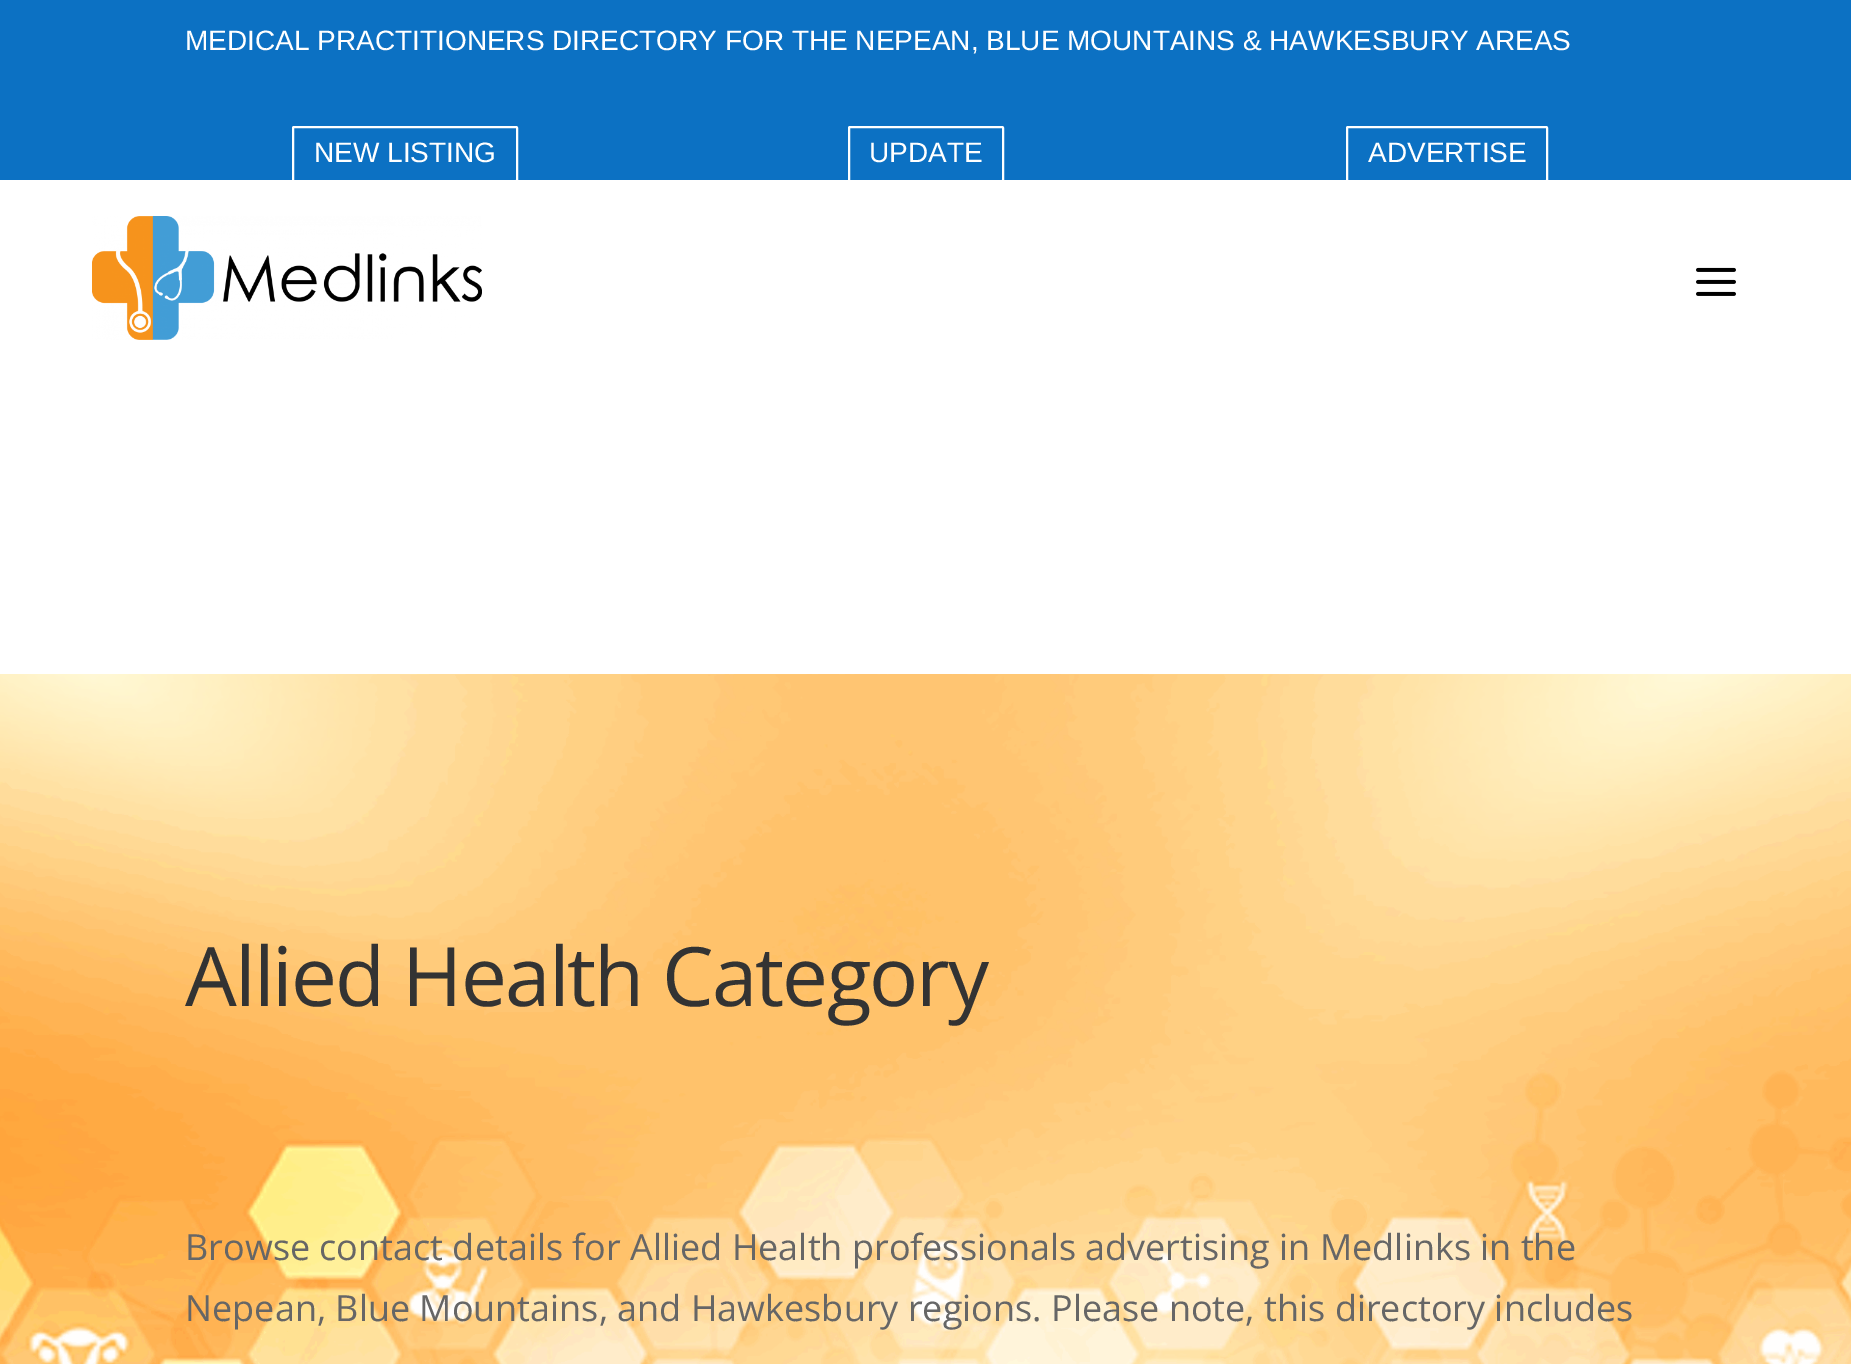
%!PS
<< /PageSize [1851 1364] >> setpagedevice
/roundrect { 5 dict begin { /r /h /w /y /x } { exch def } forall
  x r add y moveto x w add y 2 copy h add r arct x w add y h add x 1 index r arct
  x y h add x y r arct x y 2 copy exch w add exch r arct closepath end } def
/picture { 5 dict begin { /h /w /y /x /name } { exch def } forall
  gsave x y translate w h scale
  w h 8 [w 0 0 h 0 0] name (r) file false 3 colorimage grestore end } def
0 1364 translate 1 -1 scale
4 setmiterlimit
1 setgray
0 0 1851 1364 rectfill
0.047 0.443 0.765 setrgbcolor
0 0 1851 180 rectfill
/LiberationSans-Regular [28 0 0 -28 0 0] selectfont
1 setgray
185 50 moveto (MEDICAL PRACTITIONERS DIRECTORY FOR THE NEPEAN, BLUE MOUNTAINS & HAWKESBURY AREAS) show
2 setlinewidth
293 127 224 54 1 roundrect stroke
314 162 moveto (NEW LISTING) show
849 127 154 54 1 roundrect stroke
869 162 moveto (UPDATE) show
1347 127 200 54 1 roundrect stroke
1368 162 moveto (ADVERTISE) show
(img1.rgb) 92 216 390 124 picture
(img2.rgb) 1696 267 40 29 picture
(img3.rgb) 0 674 1851 690 picture
/OpenSans-Regular [82 0 0 -82 0 0] selectfont
0.2 setgray
185 1006 moveto -2 0 (Allied Health Category) ashow
/OpenSans-Regular [36 0 0 -36 0 0] selectfont
0.4 setgray
185 1260 moveto (Browse contact details for Allied Health professionals advertising in Medlinks in the) show
185 1321 moveto (Nepean, Blue Mountains, and Hawkesbury regions. Please note, this directory includes) show
showpage
